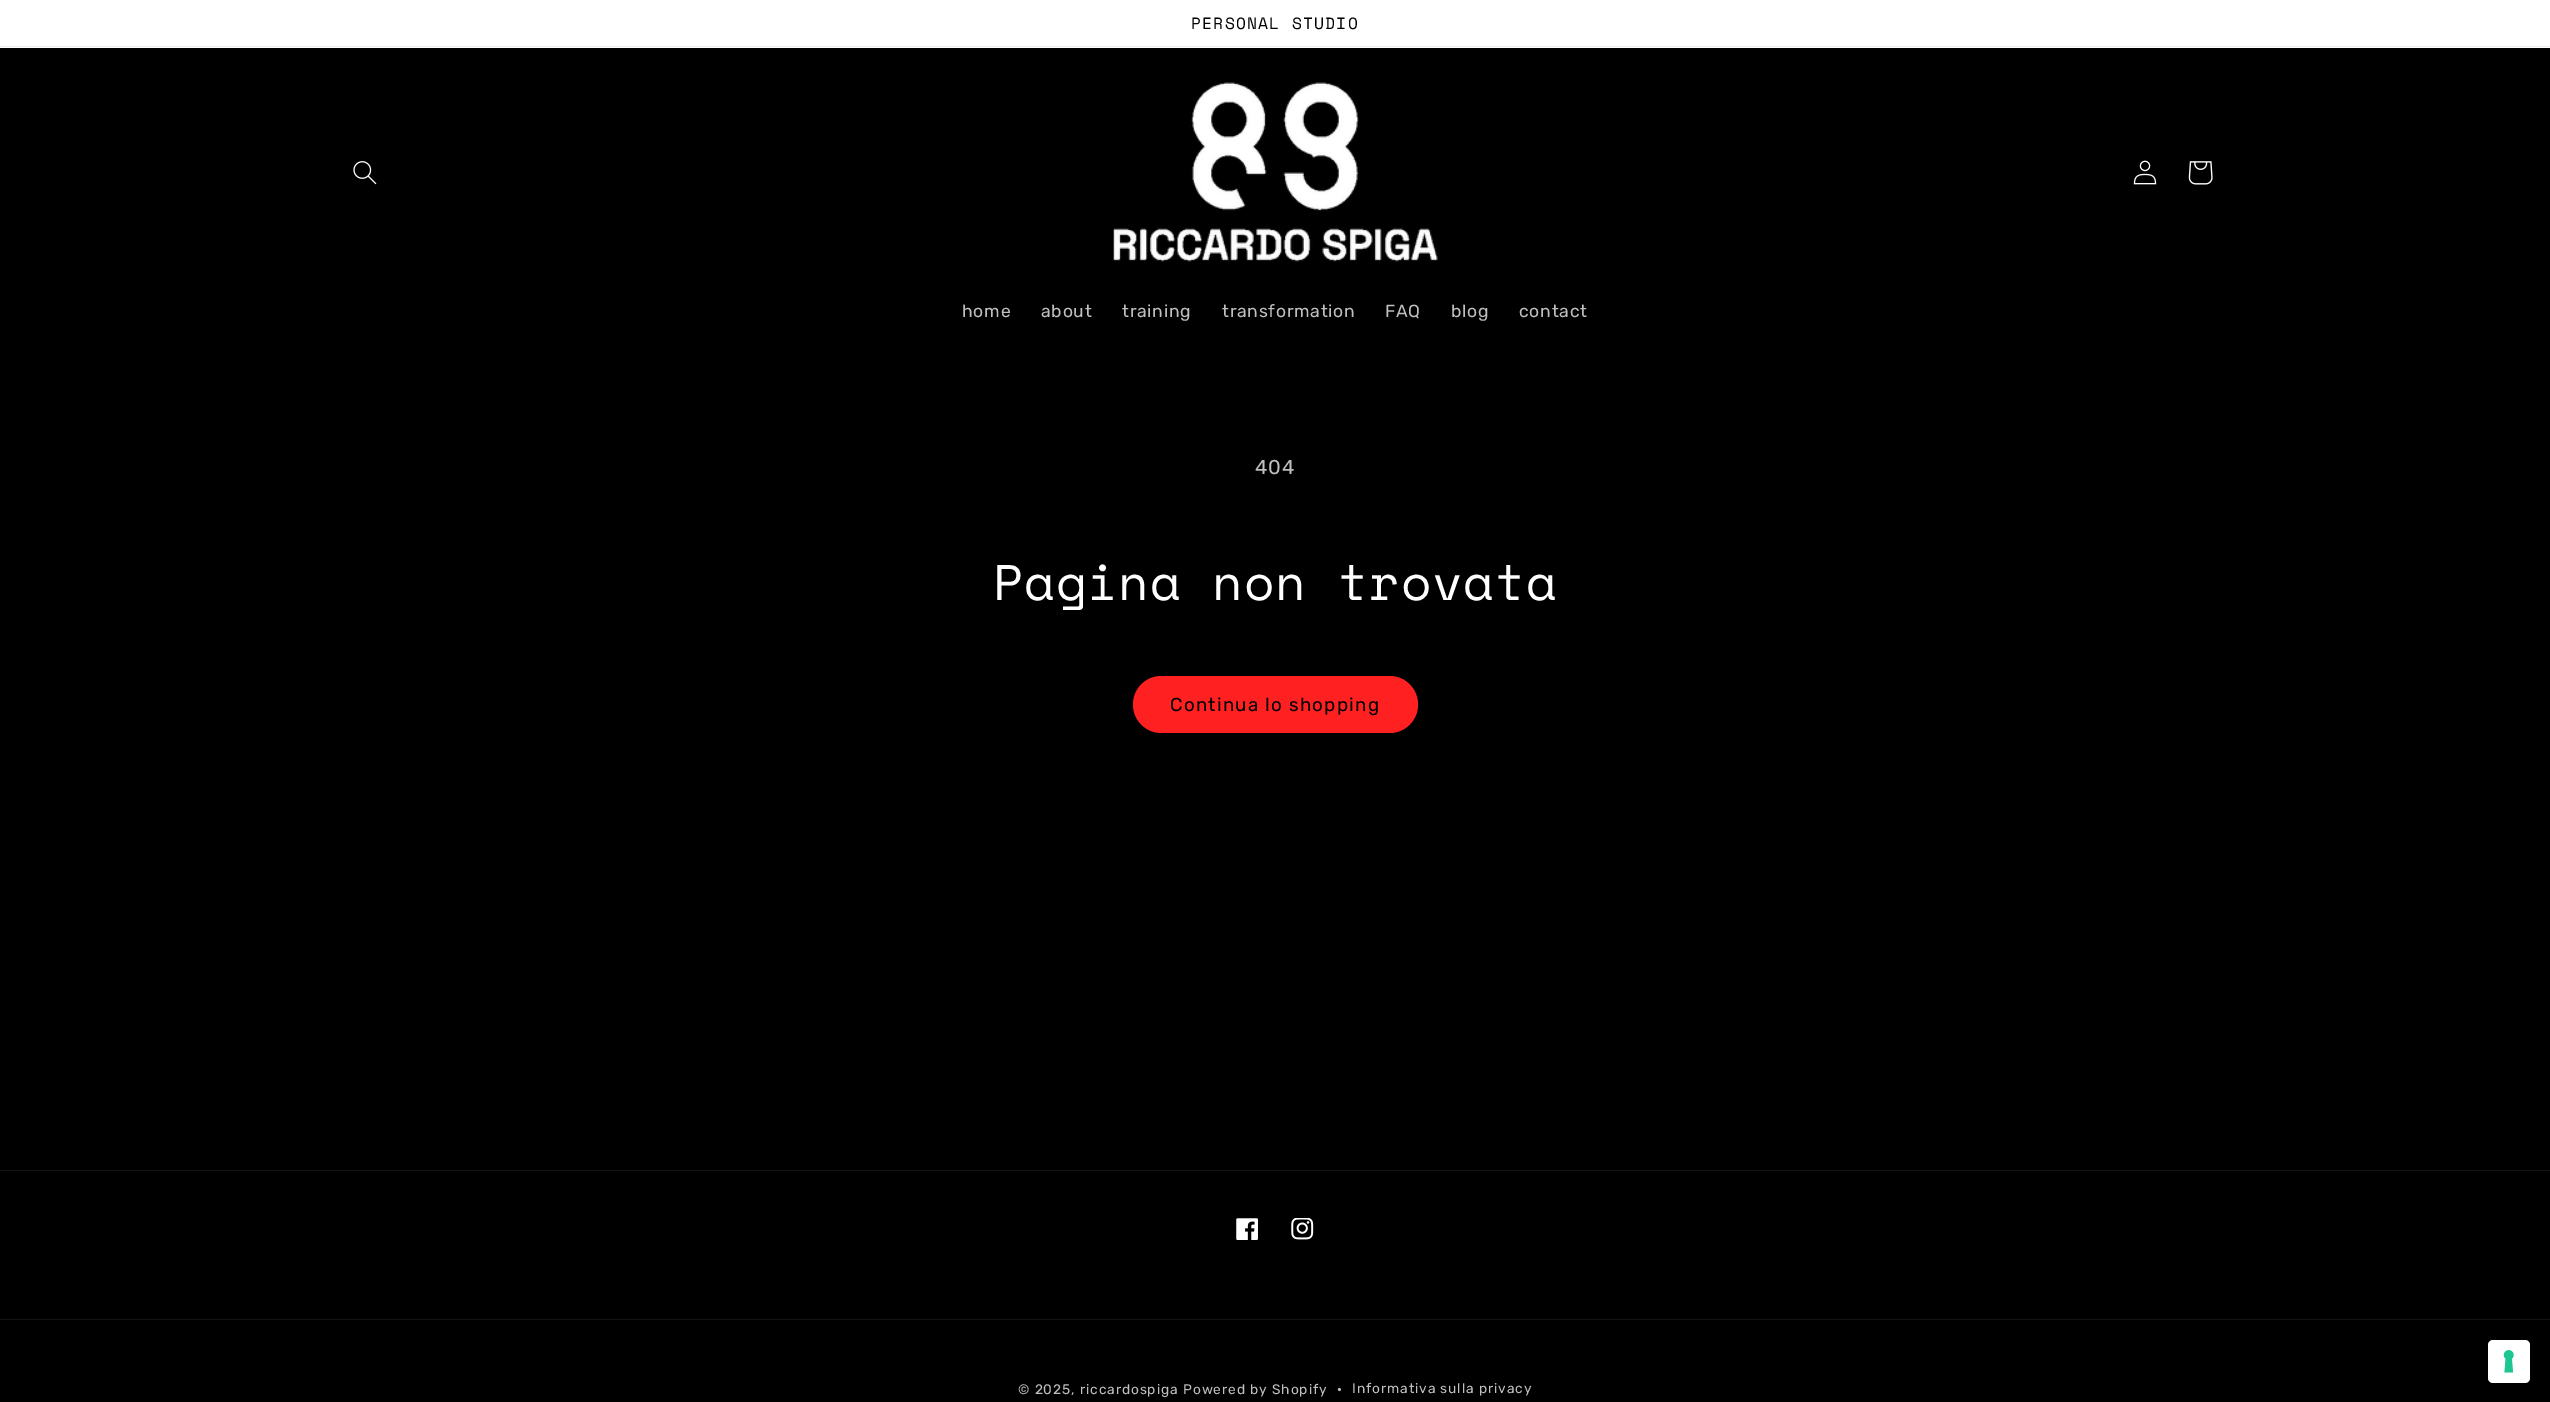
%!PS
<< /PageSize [2550 1402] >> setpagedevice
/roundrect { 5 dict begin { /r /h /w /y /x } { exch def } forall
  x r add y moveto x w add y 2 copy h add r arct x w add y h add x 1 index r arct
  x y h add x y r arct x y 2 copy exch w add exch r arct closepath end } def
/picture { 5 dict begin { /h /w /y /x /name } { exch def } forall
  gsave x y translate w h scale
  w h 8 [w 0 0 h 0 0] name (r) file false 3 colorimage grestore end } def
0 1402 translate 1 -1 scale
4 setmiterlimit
0 setgray
0 0 2550 1402 rectfill
1 setgray
0 0 2550 48 rectfill
0.922 setgray
0 46 2550 1 rectfill
/SpaceMono-Regular [16.25 0 0 -16.25 0 0] selectfont
0 setgray
1191 29 moveto 1.25 0 (PERSONAL STUDIO) ashow
(img1.rgb) 353 161 24 24 picture
(img2.rgb) 1113 82 325 180 picture
(img3.rgb) 2133 160 24 25 picture
(img4.rgb) 2188 161 25 24 picture
/Rubik-Regular [17.5 0 0 -17.5 0 0] selectfont
0.749 setgray
962 317 moveto 0.75 0 (home) ashow
1041 317 moveto 0.75 0 (about) ashow
1122 317 moveto 0.75 0 (training) ashow
1222 317 moveto 0.75 0 (transformation) ashow
1385 317 moveto 0.75 0 (FAQ) ashow
1451 317 moveto 0.75 0 (blog) ashow
1519 317 moveto 0.75 0 (contact) ashow
/Rubik-Regular [20 0 0 -20 0 0] selectfont
1255 474 moveto 0.75 0 (404) ashow
/SpaceMono-Regular [50 0 0 -50 0 0] selectfont
1 setgray
993 600 moveto 0.75 0 (Pagina non trovata) ashow
1 0.129 0.129 setrgbcolor
1133 676 285 57 28.5 roundrect fill
/Rubik-Regular [18.75 0 0 -18.75 0 0] selectfont
0 setgray
1170 711 moveto 1.25 0 (Continua lo shopping) ashow
1 setgray
2488 1340 42 43 5 roundrect fill
(img5.rgb) 2503 1350 11 23 picture
0.078 setgray
0 1170 2550 1 rectfill
(img6.rgb) 1236 1218 22 22 picture
(img7.rgb) 1291 1218 23 22 picture
0 1319 2550 1 rectfill
/Rubik-Regular [13.75 0 0 -13.75 0 0] selectfont
0.749 setgray
1018 1394 moveto 0.9 0 (© 2025, riccardospiga) ashow
1183 1394 moveto 0.9 0 (Powered by Shopify) ashow
/Rubik-Regular [15 0 0 -15 0 0] selectfont
1337 1394 moveto 0.9 0 (·) ashow
/Rubik-Regular [13.75 0 0 -13.75 0 0] selectfont
1352 1393 moveto 0.9 0 (Informativa sulla privacy) ashow
showpage
